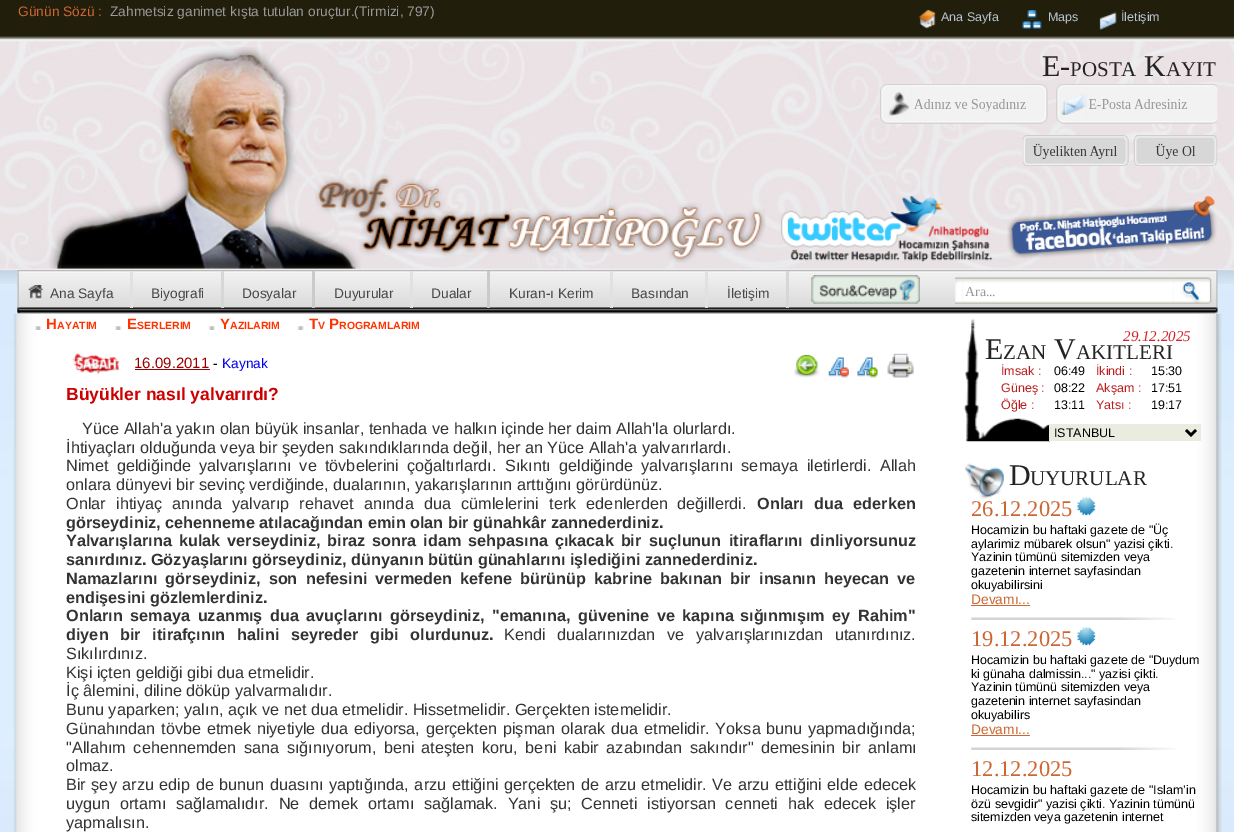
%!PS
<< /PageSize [1234 832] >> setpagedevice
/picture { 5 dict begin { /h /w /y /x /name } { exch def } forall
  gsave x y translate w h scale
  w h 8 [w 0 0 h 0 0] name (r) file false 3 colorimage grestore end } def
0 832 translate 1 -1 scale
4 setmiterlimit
1 setgray
0 0 1234 832 rectfill
(img1.rgb) 0 41 1234 791 picture
(img2.rgb) 0 0 1234 41 picture
/LiberationSans-Regular [13.75 0 0 -13.75 0 0] selectfont
0.8 0.4 0.2 setrgbcolor
18 16 moveto (Günün Sözü :) show
0.6 setgray
110 16 moveto (Zahmetsiz ganimet kışta tutulan oruçtur.\(Tirmizi, 797\)) show
(img3.rgb) 918 10 18 19 picture
/LiberationSans-Regular [12.5 0 0 -12.5 0 0] selectfont
0.722 0.776 0.827 setrgbcolor
941 21 moveto (Ana Sayfa) show
(img4.rgb) 1022 10 20 19 picture
1048 21 moveto (Maps) show
(img5.rgb) 1099 12 18 18 picture
1121 21 moveto (İletişim) show
(img6.rgb) 0 41 1234 228 picture
(img12.rgb) 0 268 1234 16 picture
(img7.rgb) 49 47 312 222 picture
/LiberationSerif-Regular [30 0 0 -30 0 0] selectfont
0.145 0.141 0.133 setrgbcolor
1042 76 moveto (E-) show
/LiberationSerif-Regular [21 0 0 -21 0 0] selectfont
1070 76 moveto (POSTA) show
/LiberationSerif-Regular [30 0 0 -30 0 0] selectfont
1144 76 moveto (K) show
/LiberationSerif-Regular [21 0 0 -21 0 0] selectfont
1166 76 moveto (AYIT) show
(img8.rgb) 880 84 338 82 picture
(img9.rgb) 315 174 451 89 picture
(img10.rgb) 781 196 212 66 picture
(img11.rgb) 1007 196 210 63 picture
(img21.rgb) 13 313 1209 519 picture
(img14.rgb) 17 270 1198 44 picture
(img13.rgb) 17 270 3 44 picture
(img15.rgb) 28 285 16 15 picture
0.882 setgray
130 271 3 37 rectfill
/LiberationSans-Regular [13.75 0 0 -13.75 0 0] selectfont
0.275 setgray
50 298 moveto (Ana Sayfa) show
0.843 setgray
221 271 3 37 rectfill
0.275 setgray
151 298 moveto (Biyografi) show
0.792 setgray
312 271 3 37 rectfill
0.275 setgray
242 298 moveto (Dosyalar) show
0.882 setgray
410 271 3 37 rectfill
0.275 setgray
334 298 moveto (Duyurular) show
0.792 setgray
487 271 3 37 rectfill
0.275 setgray
431 298 moveto (Dualar) show
0.882 setgray
610 271 3 37 rectfill
0.275 setgray
509 298 moveto (Kuran-ı Kerim) show
0.882 setgray
705 271 3 37 rectfill
0.275 setgray
631 298 moveto (Basından) show
0.843 setgray
786 271 3 37 rectfill
0.275 setgray
727 298 moveto (İletişim) show
(img16.rgb) 811 275 109 29 picture
(img17.rgb) 955 277 8 27 picture
(img18.rgb) 962 277 212 27 picture
/LiberationSerif-Regular [13.75 0 0 -13.75 0 0] selectfont
0.6 setgray
965 296 moveto (Ara...) show
(img19.rgb) 1173 277 39 27 picture
(img20.rgb) 1215 270 3 44 picture
(img22.rgb) 35 326 7 4 picture
/LiberationSans-Bold [15 0 0 -15 0 0] selectfont
1 0.2 0 setrgbcolor
46 329 moveto (H) show
/LiberationSans-Bold [10.5 0 0 -10.5 0 0] selectfont
57 329 moveto (AYATIM) show
(img23.rgb) 115 326 7 4 picture
/LiberationSans-Bold [15 0 0 -15 0 0] selectfont
127 329 moveto (E) show
/LiberationSans-Bold [10.5 0 0 -10.5 0 0] selectfont
137 329 moveto (SERLERIM) show
(img24.rgb) 208 326 7 4 picture
/LiberationSans-Bold [15 0 0 -15 0 0] selectfont
220 329 moveto (Y) show
/LiberationSans-Bold [10.5 0 0 -10.5 0 0] selectfont
230 329 moveto (AZILARIM) show
(img25.rgb) 297 326 7 4 picture
/LiberationSans-Bold [15 0 0 -15 0 0] selectfont
309 329 moveto (T) show
/LiberationSans-Bold [10.5 0 0 -10.5 0 0] selectfont
318 329 moveto (V) show
/LiberationSans-Bold [15 0 0 -15 0 0] selectfont
329 329 moveto (P) show
/LiberationSans-Bold [10.5 0 0 -10.5 0 0] selectfont
339 329 moveto (ROGRAMLARIM) show
(img26.rgb) 72 353 47 21 picture
/LiberationSans-Regular [15 0 0 -15 0 0] selectfont
0.6 0 0 setrgbcolor
134 368 moveto (16.09.2011) show
135 369 75 1 rectfill
/LiberationSans-Regular [13.75 0 0 -13.75 0 0] selectfont
0 setgray
213 368 moveto (-) show
0 0 0.933 setrgbcolor
222 368 moveto (Kaynak) show
(img27.rgb) 794 354 26 24 picture
(img28.rgb) 828 357 21 21 picture
(img29.rgb) 857 357 21 21 picture
(img30.rgb) 887 353 27 25 picture
/LiberationSans-Bold [17.5 0 0 -17.5 0 0] selectfont
0.8 0 0 setrgbcolor
66 400 moveto (Büyükler nasıl yalvarırdı?) show
/LiberationSans-Regular [16.25 0 0 -16.25 0 0] selectfont
0.2 setgray
82 434 moveto (Yüce Allah'a yakın olan büyük insanlar, tenhada ve halkın içinde her daim Allah'la olurlardı.) show
66 453 moveto (İhtiyaçları olduğunda veya bir şeyden sakındıklarında değil, her an Yüce Allah'a yalvarırlardı.) show
66 471 moveto 3.75 0 32 (Nimet geldiğinde yalvarışlarını ve tövbelerini çoğaltırlardı. Sıkıntı geldiğinde) widthshow
641 471 moveto 3.75 0 32 (yalvarışlarını semaya iletirlerdi. Allah) widthshow
66 490 moveto (onlara dünyevi bir sevinç verdiğinde, dualarının, yakarışlarının arttığını görürdünüz.) show
66 509 moveto 5.75 0 32 (Onlar ihtiyaç anında yalvarıp rehavet anında dua cümlelerini terk edenlerden) widthshow
677 509 moveto (değillerdi.) show
/LiberationSans-Bold [16.25 0 0 -16.25 0 0] selectfont
757 509 moveto 5.75 0 32 (Onları dua ederken) widthshow
66 528 moveto (görseydiniz, cehenneme atılacağından emin olan bir günahkâr zannederdiniz.) show
66 546 moveto 2.5 0 32 (Yalvarışlarına kulak verseydiniz, biraz sonra idam sehpasına çıkacak bir) widthshow
649 546 moveto 3 0 32 (suçlunun itiraflarını dinliyorsunuz) widthshow
66 565 moveto (sanırdınız. Gözyaşlarını görseydiniz, dünyanın bütün günahlarını işlediğini zannederdiniz.) show
66 584 moveto 3.75 0 32 (Namazlarını görseydiniz, son nefesini vermeden kefene bürünüp kabrine bakınan) widthshow
730 584 moveto 3.75 0 32 (bir insanın heyecan ve) widthshow
66 603 moveto (endişesini gözlemlerdiniz.) show
66 621 moveto 3 0 32 (Onların semaya uzanmış dua avuçlarını görseydiniz, "emanına, güvenine ve kapına) widthshow
740 621 moveto 3 0 32 (sığınmışım ey Rahim") widthshow
66 640 moveto 7 0 32 (diyen bir itirafçının halini seyreder gibi olurdunuz.) widthshow
/LiberationSans-Regular [16.25 0 0 -16.25 0 0] selectfont
504 640 moveto 7 0 32 (Kendi dualarınızdan ve yalvarışlarınızdan utanırdınız.) widthshow
66 659 moveto (Sıkılırdınız.) show
66 678 moveto (Kişi içten geldiği gibi dua etmelidir.) show
66 696 moveto (İç âlemini, diline döküp yalvarmalıdır.) show
66 715 moveto (Bunu yaparken; yalın, açık ve net dua etmelidir. Hissetmelidir. Gerçekten istemelidir.) show
66 734 moveto 1.25 0 32 (Günahından tövbe etmek niyetiyle dua ediyorsa, gerçekten pişman olarak dua) widthshow
644 734 moveto 1 0 32 (etmelidir. Yoksa bunu yapmadığında;) widthshow
66 753 moveto 3 0 32 ("Allahım cehennemden sana sığınıyorum, beni) widthshow
421 753 moveto 3 0 32 (ateşten koru, beni kabir azabından sakındır" demesinin bir anlamı) widthshow
66 771 moveto (olmaz.) show
66 790 moveto 1 0 32 (Bir şey arzu edip de bunun duasını yaptığında, arzu ettiğini gerçekten de arzu) widthshow
641 790 moveto 1 0 32 (etmelidir. Ve arzu ettiğini elde edecek) widthshow
66 809 moveto 5.25 0 32 (uygun ortamı sağlamalıdır. Ne demek) widthshow
368 809 moveto 5.25 0 32 (ortamı sağlamak. Yani şu; Cenneti istiyorsan cenneti hak edecek işler) widthshow
66 828 moveto (yapmalısın.) show
(img31.rgb) 963 319 87 123 picture
/LiberationSerif-Italic [15 0 0 -15 0 0] selectfont
0.824 0.137 0.169 setrgbcolor
1123 341 moveto (29.12.2025) show
/LiberationSerif-Regular [30 0 0 -30 0 0] selectfont
0.145 0.141 0.133 setrgbcolor
985 359 moveto (E) show
/LiberationSerif-Regular [21 0 0 -21 0 0] selectfont
1003 359 moveto (ZAN) show
/LiberationSerif-Regular [30 0 0 -30 0 0] selectfont
1054 359 moveto (V) show
/LiberationSerif-Regular [21 0 0 -21 0 0] selectfont
1076 359 moveto (AKITLERI) show
/LiberationSans-Regular [12.5 0 0 -12.5 0 0] selectfont
0.733 0.114 0.114 setrgbcolor
1001 375 moveto (İmsak :) show
0 setgray
1054 375 moveto (06:49) show
0.733 0.114 0.114 setrgbcolor
1096 375 moveto (İkindi :) show
0 setgray
1151 375 moveto (15:30) show
0.733 0.114 0.114 setrgbcolor
1001 392 moveto (Güneş :) show
0 setgray
1054 392 moveto (08:22) show
0.733 0.114 0.114 setrgbcolor
1096 392 moveto (Akşam :) show
0 setgray
1151 392 moveto (17:51) show
0.733 0.114 0.114 setrgbcolor
1001 409 moveto (Öğle :) show
0 setgray
1054 409 moveto (13:11) show
0.733 0.114 0.114 setrgbcolor
1096 409 moveto (Yatsı :) show
0 setgray
1151 409 moveto (19:17) show
0.922 0.925 0.878 setrgbcolor
1049 424 152 17 rectfill
0 setgray
2.5 setlinewidth
newpath 1186 430 moveto 1191 435 lineto 1196 430 lineto stroke
1054 437 moveto (ISTANBUL) show
(img32.rgb) 965 463 39 36 picture
/LiberationSerif-Regular [30 0 0 -30 0 0] selectfont
0.145 0.141 0.133 setrgbcolor
1009 485 moveto (D) show
/LiberationSerif-Regular [21 0 0 -21 0 0] selectfont
1030 485 moveto (UYURULAR) show
/LiberationSerif-Regular [22.5 0 0 -22.5 0 0] selectfont
0.8 0.4 0.2 setrgbcolor
971 516 moveto (26.12.2025) show
(img33.rgb) 1077 497 19 19 picture
/LiberationSans-Regular [12.5 0 0 -12.5 0 0] selectfont
0 setgray
971 534 moveto (Hocamizin bu haftaki gazete de "Üç) show
971 548 moveto (aylarimiz mübarek olsun" yazisi çikti.) show
971 561 moveto (Yazinin tümünü sitemizden veya) show
971 575 moveto (gazetenin internet sayfasindan) show
971 589 moveto (okuyabilirsini) show
/LiberationSans-Regular [13.75 0 0 -13.75 0 0] selectfont
0.8 0.4 0.2 setrgbcolor
971 604 moveto (Devamı...) show
971 605 59 1 rectfill
(img34.rgb) 971 617 205 3 picture
/LiberationSerif-Regular [22.5 0 0 -22.5 0 0] selectfont
971 646 moveto (19.12.2025) show
(img33.rgb) 1077 627 19 19 picture
/LiberationSans-Regular [12.5 0 0 -12.5 0 0] selectfont
0 setgray
971 664 moveto (Hocamizin bu haftaki gazete de "Duydum) show
971 678 moveto (ki günaha dalmissin..." yazisi çikti.) show
971 691 moveto (Yazinin tümünü sitemizden veya) show
971 705 moveto (gazetenin internet sayfasindan) show
971 719 moveto (okuyabilirs) show
/LiberationSans-Regular [13.75 0 0 -13.75 0 0] selectfont
0.8 0.4 0.2 setrgbcolor
971 734 moveto (Devamı...) show
971 735 59 1 rectfill
(img34.rgb) 971 747 205 3 picture
/LiberationSerif-Regular [22.5 0 0 -22.5 0 0] selectfont
971 776 moveto (12.12.2025) show
/LiberationSans-Regular [12.5 0 0 -12.5 0 0] selectfont
0 setgray
971 794 moveto (Hocamizin bu haftaki gazete de "Islam’in) show
971 808 moveto (özü sevgidir" yazisi çikti. Yazinin tümünü) show
971 821 moveto (sitemizden veya gazetenin internet) show
showpage
